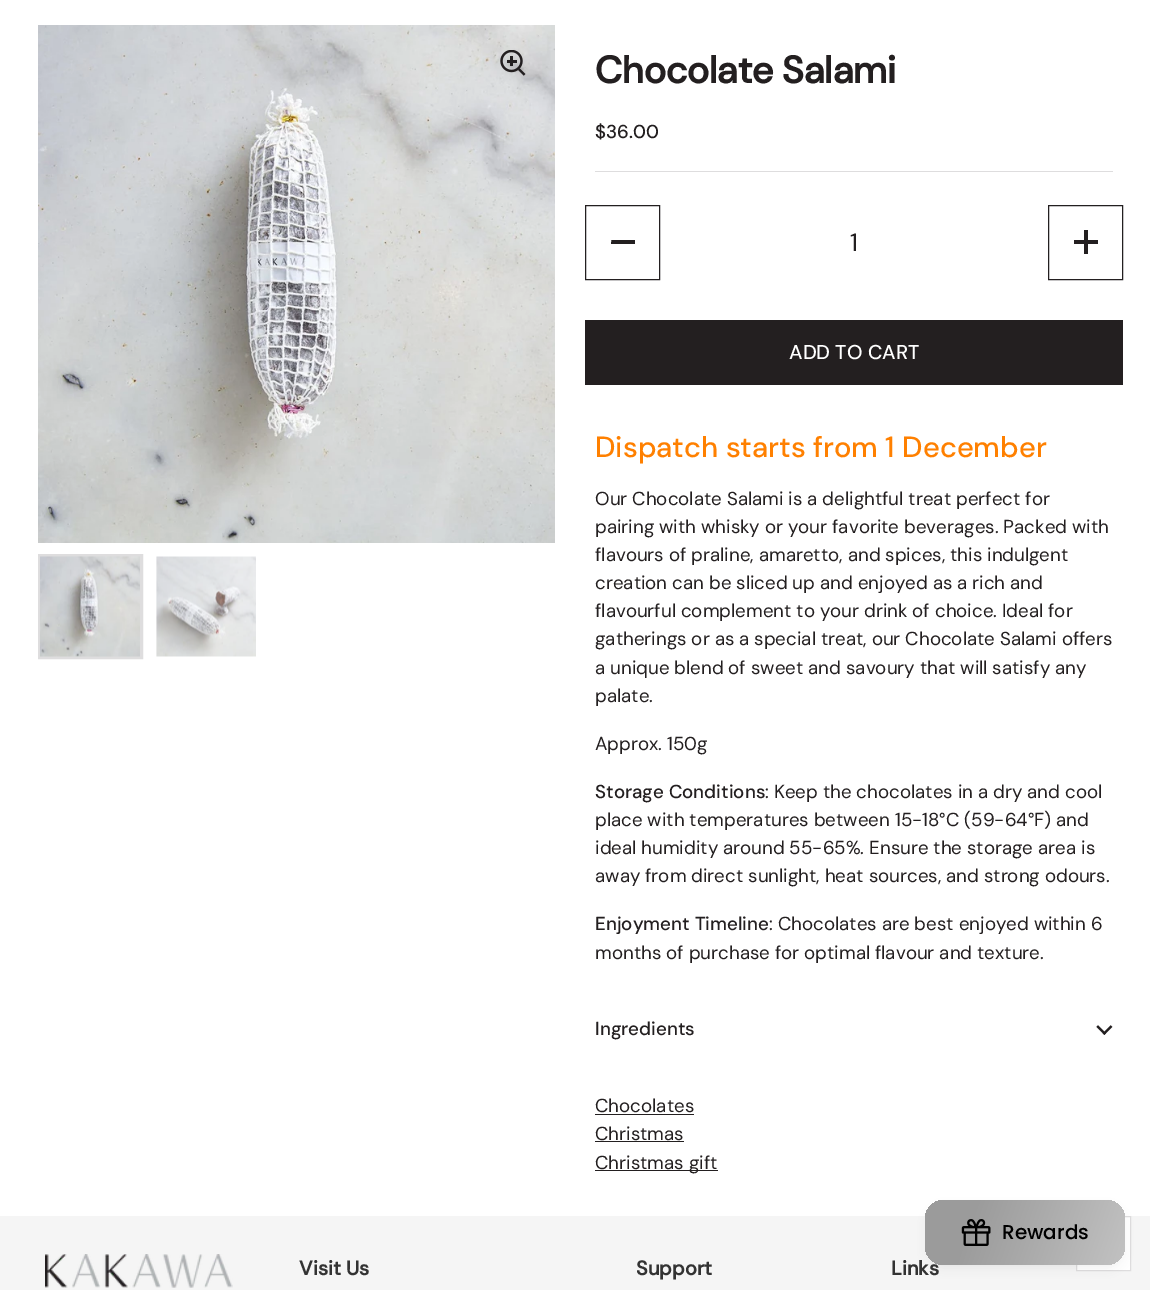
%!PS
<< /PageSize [1150 1290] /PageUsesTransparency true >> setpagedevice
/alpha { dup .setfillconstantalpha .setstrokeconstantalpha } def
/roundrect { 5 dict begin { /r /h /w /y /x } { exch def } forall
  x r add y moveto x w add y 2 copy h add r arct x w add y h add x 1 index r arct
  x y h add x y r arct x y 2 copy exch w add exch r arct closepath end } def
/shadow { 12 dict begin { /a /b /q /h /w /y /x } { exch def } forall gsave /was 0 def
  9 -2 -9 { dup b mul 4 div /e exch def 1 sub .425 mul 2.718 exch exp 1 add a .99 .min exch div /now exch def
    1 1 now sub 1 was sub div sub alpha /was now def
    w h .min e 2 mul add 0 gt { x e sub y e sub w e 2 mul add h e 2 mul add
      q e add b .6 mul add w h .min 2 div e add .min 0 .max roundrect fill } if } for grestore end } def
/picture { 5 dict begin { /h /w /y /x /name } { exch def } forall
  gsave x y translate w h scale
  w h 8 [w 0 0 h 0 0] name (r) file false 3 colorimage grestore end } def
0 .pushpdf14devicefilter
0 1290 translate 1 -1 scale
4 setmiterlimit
1 setgray
0 0 1150 1290 rectfill
(img1.rgb) 38 25 517 518 picture
(img2.rgb) 500 50 26 26 picture
0.871 0.867 0.871 setrgbcolor
3 setlinewidth
39.5 555.5 102 102 rectstroke
(img3.rgb) 40 556 100 101 picture
(img4.rgb) 156 556 100 101 picture
/DMSans-Bold [38 0 0 -38 0 0] selectfont
0.137 0.122 0.125 setrgbcolor
595 83 moveto (Chocolate Salami) show
/DMSans-Medium [18.75 0 0 -18.75 0 0] selectfont
595 138 moveto ($36.00) show
0.871 0.867 0.871 setrgbcolor
595 171 518 1 rectfill
0.137 0.122 0.125 setrgbcolor
1 setlinewidth
585.5 205.5 74 74 rectstroke
newpath 635 240 moveto 635 244 lineto 611 244 lineto 611.5 240 lineto closepath fill
/DMSans-Regular [25 0 0 -25 0 0] selectfont
850 251 moveto (1) show
1048.5 205.5 74 74 rectstroke
1084 230 4 24 rectfill
1074 240 24 4 rectfill
585 320 538 65 rectfill
/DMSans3-Medium [20 0 0 -20 0 0] selectfont
1 setgray
789 359 moveto (ADD TO CART) show
/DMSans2-Medium [29.2 0 0 -29.2 0 0] selectfont
1 0.502 0 setrgbcolor
595 457 moveto (Dispatch starts from 1 December) show
/DMSans-Regular [18.75 0 0 -18.75 0 0] selectfont
0.137 0.122 0.125 setrgbcolor
595 505 moveto (Our Chocolate Salami is a delightful treat perfect for) show
595 533 moveto (pairing with whisky or your favorite beverages. Packed with) show
595 561 moveto (flavours of praline, amaretto, and spices, this indulgent) show
595 589 moveto (creation can be sliced up and enjoyed as a rich and) show
595 617 moveto (flavourful complement to your drink of choice. Ideal for) show
595 645 moveto (gatherings or as a special treat, our Chocolate Salami offers) show
595 674 moveto (a unique blend of sweet and savoury that will satisfy any) show
595 702 moveto (palate.) show
595 750 moveto (Approx. 150g) show
/DMSans-Medium [18.75 0 0 -18.75 0 0] selectfont
595 798 moveto (Storage Conditions) show
/DMSans-Regular [18.75 0 0 -18.75 0 0] selectfont
765 798 moveto (: Keep the chocolates in a dry and cool) show
595 826 moveto (place with temperatures between 15-18°C \(59-64°F\) and) show
595 854 moveto (ideal humidity around 55-65%. Ensure the storage area is) show
595 882 moveto (away from direct sunlight, heat sources, and strong odours.) show
/DMSans-Medium [18.75 0 0 -18.75 0 0] selectfont
595 930 moveto (Enjoyment Timeline) show
/DMSans-Regular [18.75 0 0 -18.75 0 0] selectfont
769 930 moveto (: Chocolates are best enjoyed within 6) show
595 959 moveto (months of purchase for optimal flavour and texture.) show
/DMSans-Medium [18.75 0 0 -18.75 0 0] selectfont
595 1035 moveto (Ingredients) show
(img5.rgb) 1096 1025 17 10 picture
/DMSans-Regular [18.75 0 0 -18.75 0 0] selectfont
595 1112 moveto (Chocolates) show
595 1114 99 1 rectfill
595 1140 moveto (Christmas) show
595 1141 89 1 rectfill
595 1170 123 1 rectfill
595 1169 moveto (Christmas gift) show
0.961 setgray
0 1216 1150 74 rectfill
1 setgray
newpath 1076.5 1216.5 moveto 1130.5 1216.5 lineto 1130.5 1270.5 lineto 1076.5 1270.5 lineto closepath gsave fill grestore
0.871 0.867 0.871 setrgbcolor
stroke
0.267 setgray
928 1208 195 60 16 5 0.08 shadow
/DMSans2-Bold [20 0 0 -20 0 0] selectfont
0.2 setgray
891 1275 moveto (Links) show
gsave 925 1200 200 65 19 roundrect clip newpath
<< /ShadingType 2 /ColorSpace /DeviceRGB /Coords [926 1197 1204 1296] /Extend [true true] /Function << /FunctionType 3 /Domain [0 1] /Functions [<< /FunctionType 2 /Domain [0 1] /C0 [0.608 0.608 0.608] /C1 [0.608 0.608 0.608] /N 1 >> << /FunctionType 2 /Domain [0 1] /C0 [0.608 0.608 0.608] /C1 [0.839 0.839 0.839] /N 1 >>] /Bounds [0.17] /Encode [0 1 0 1] >> >> shfill grestore
(img6.rgb) 961 1219 30 27 picture
/Poppins-Medium [20 0 0 -20 0 0] selectfont
0 setgray
1002 1239 moveto (Rewards) show
(img7.rgb) 45 1254 188 34 picture
/DMSans2-Bold [20 0 0 -20 0 0] selectfont
0.2 setgray
299 1275 moveto (Visit Us) show
636 1275 moveto (Support) show
.poppdf14devicefilter showpage
